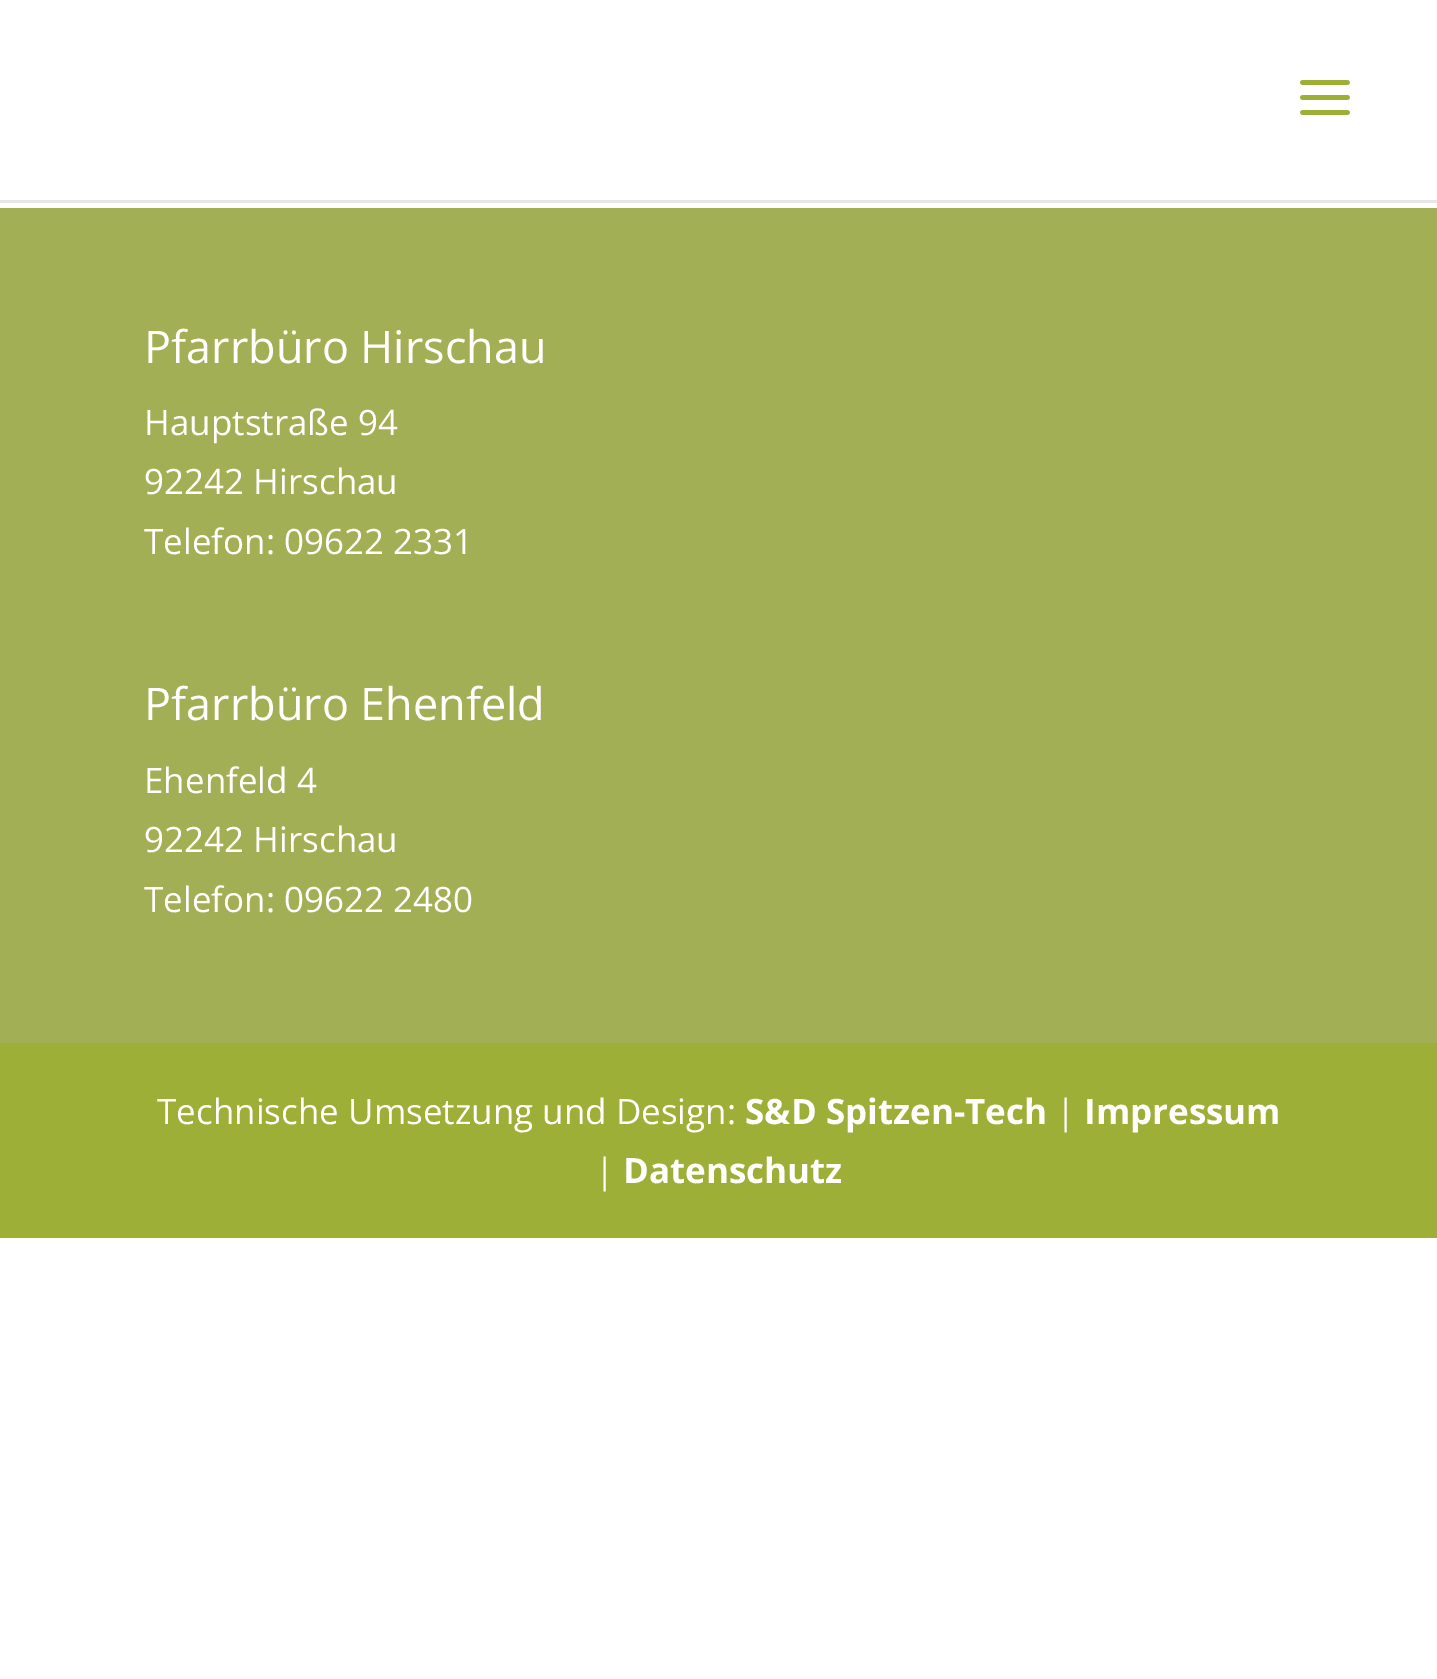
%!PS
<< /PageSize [1437 1679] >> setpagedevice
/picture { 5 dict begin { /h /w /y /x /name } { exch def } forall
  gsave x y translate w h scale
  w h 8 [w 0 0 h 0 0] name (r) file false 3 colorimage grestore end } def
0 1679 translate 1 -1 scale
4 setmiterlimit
1 setgray
0 0 1437 1679 rectfill
0.902 setgray
newpath 0 200 moveto 0 203 lineto 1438 203 lineto 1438 3 lineto 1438 200 lineto closepath fill
(img1.rgb) 1300 80 50 35 picture
0.639 0.686 0.329 setrgbcolor
0 208 1437 835 rectfill
/OpenSans-Regular [45 0 0 -45 0 0] selectfont
1 setgray
144 363 moveto (Pfarrbüro Hirschau) show
/OpenSans-Regular [35 0 0 -35 0 0] selectfont
144 435 moveto (Hauptstraße 94) show
144 494 moveto (92242 Hirschau) show
144 554 moveto (Telefon: 09622 2331) show
/OpenSans-Regular [45 0 0 -45 0 0] selectfont
144 720 moveto (Pfarrbüro Ehenfeld) show
/OpenSans-Regular [35 0 0 -35 0 0] selectfont
144 793 moveto (Ehenfeld 4) show
144 852 moveto (92242 Hirschau) show
144 912 moveto (Telefon: 09622 2480) show
0.62 0.686 0.22 setrgbcolor
0 1043 1437 195 rectfill
1 setgray
157 1124 moveto (Technische Umsetzung und Design:) show
/OpenSans-Bold [35 0 0 -35 0 0] selectfont
745 1124 moveto (S&D Spitzen-Tech) show
/OpenSans-Regular [35 0 0 -35 0 0] selectfont
1056 1124 moveto (|) show
/OpenSans-Bold [35 0 0 -35 0 0] selectfont
1084 1124 moveto (Impressum) show
/OpenSans-Regular [35 0 0 -35 0 0] selectfont
595 1183 moveto (|) show
/OpenSans-Bold [35 0 0 -35 0 0] selectfont
623 1183 moveto (Datenschutz) show
showpage
